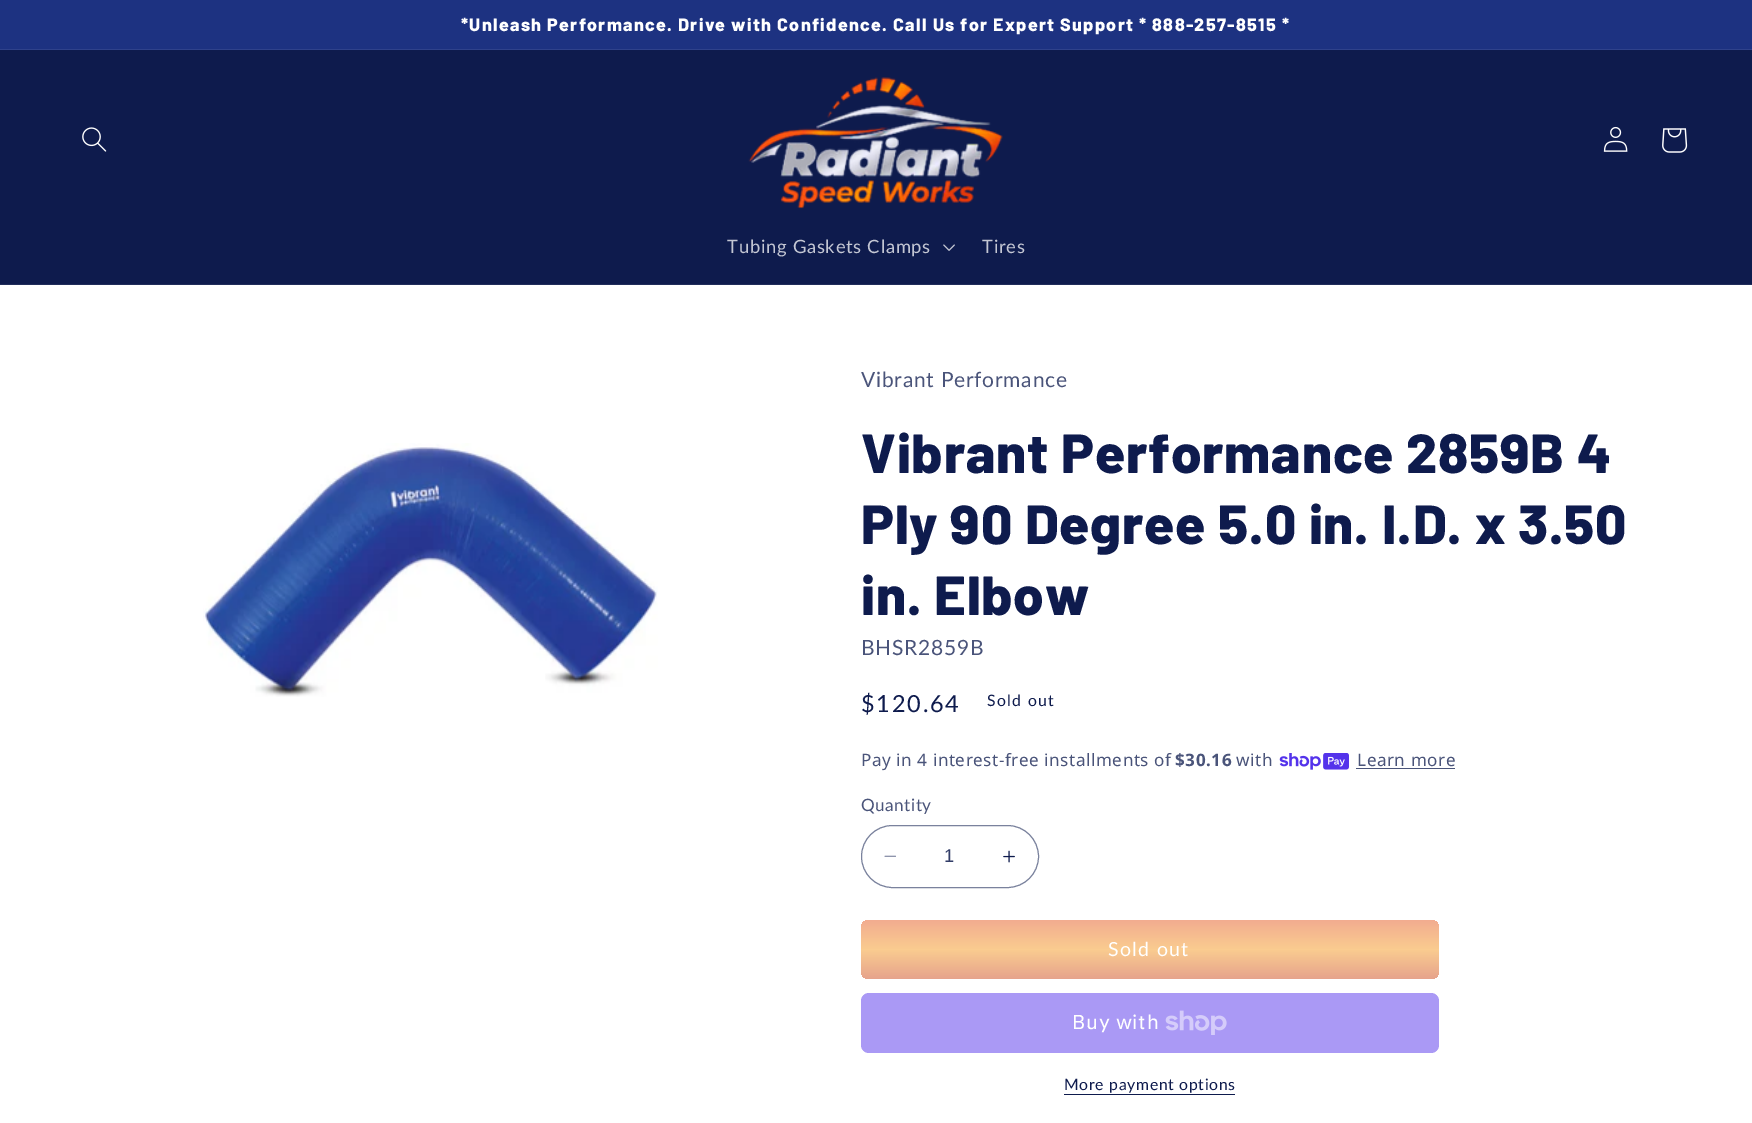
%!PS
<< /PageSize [1752 1123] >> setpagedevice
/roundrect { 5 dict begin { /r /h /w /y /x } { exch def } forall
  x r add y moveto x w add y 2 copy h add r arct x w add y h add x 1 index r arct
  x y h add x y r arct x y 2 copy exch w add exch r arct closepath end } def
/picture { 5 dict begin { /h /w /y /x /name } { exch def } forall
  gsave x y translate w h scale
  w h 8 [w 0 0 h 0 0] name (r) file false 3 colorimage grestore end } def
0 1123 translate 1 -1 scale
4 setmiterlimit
1 setgray
0 0 1752 1123 rectfill
0.114 0.196 0.506 setrgbcolor
0 0 1752 49 rectfill
0.184 0.259 0.545 setrgbcolor
0 49 1752 1 rectfill
/Barlow-ExtraBold [17.9 0 0 -17.9 0 0] selectfont
1 setgray
461 31 moveto 1.3 0 (*Unleash Performance. Drive with Confidence. Call Us for Expert Support * 888-257-8515 *) ashow
0.055 0.106 0.302 setrgbcolor
0 50 1752 234 rectfill
0.129 0.176 0.357 setrgbcolor
0 284 1752 1 rectfill
(img1.rgb) 82 127 25 25 picture
(img2.rgb) 748 77 255 132 picture
(img3.rgb) 1603 126 25 26 picture
(img4.rgb) 1662 128 26 25 picture
/Lato-Regular [18.4 0 0 -18.4 0 0] selectfont
0.765 0.776 0.827 setrgbcolor
727 253 moveto 0.75 0 (Tubing Gaskets Clamps) ashow
(img5.rgb) 943 244 12 7 picture
982 253 moveto 0.75 0 (Tires) ashow
(img6.rgb) 203 443 455 254 picture
/Lato-Regular [21 0 0 -21 0 0] selectfont
0.29 0.329 0.478 setrgbcolor
861 387 moveto 0.75 0 (Vibrant Performance) ashow
/Barlow-ExtraBold [55 0 0 -55 0 0] selectfont
0.055 0.106 0.302 setrgbcolor
861 473 moveto 0.8 0 (Vibrant Performance 2859B 4) ashow
861 544 moveto 0.8 0 (Ply 90 Degree 5.0 in. I.D. x 3.50) ashow
861 615 moveto 0.8 0 (in. Elbow) ashow
/Lato-Regular [21 0 0 -21 0 0] selectfont
0.29 0.329 0.478 setrgbcolor
861 655 moveto 0.75 0 (BHSR2859B) ashow
/Lato-Regular [23.5 0 0 -23.5 0 0] selectfont
0.055 0.106 0.302 setrgbcolor
861 712 moveto 1.75 0 ($120.64) ashow
/Lato-Regular [15.75 0 0 -15.75 0 0] selectfont
987 706 moveto 1.3 0 (Sold out) ashow
/NotoSans-Regular [17.1 0 0 -17.1 0 0] selectfont
0.29 0.329 0.478 setrgbcolor
861 766 moveto 0.55 0 (Pay in 4 interest-free installments of) ashow
/NotoSans-Bold [17.1 0 0 -17.1 0 0] selectfont
1175 766 moveto 0.55 0 ($30.16) ashow
/NotoSans-Regular [17.1 0 0 -17.1 0 0] selectfont
1236 766 moveto 0.55 0 (with) ashow
(img7.rgb) 1279 753 70 17 picture
1357 766 moveto 0.55 0 (Learn more) ashow
1356 768 99 1 rectfill
/Lato-Regular [17.1 0 0 -17.1 0 0] selectfont
861 811 moveto 0.55 0 (Quantity) ashow
(img8.rgb) 884 855 12 2 picture
(img9.rgb) 1003 850 12 13 picture
0.478 0.51 0.616 setrgbcolor
861.5 825.5 177 62 31 roundrect stroke
/LiberationSans-Regular [18.4 0 0 -18.4 0 0] selectfont
0.196 0.239 0.408 setrgbcolor
944 862 moveto (1) show
gsave 861 920 578 59 8 roundrect clip newpath
<< /ShadingType 2 /ColorSpace /DeviceRGB /Coords [1150 920 1150 979] /Extend [true true] /Function << /FunctionType 3 /Domain [0 1] /Functions [<< /FunctionType 2 /Domain [0 1] /C0 [0.949 0.675 0.561] /C1 [0.98 0.8 0.565] /N 1 >> << /FunctionType 2 /Domain [0 1] /C0 [0.98 0.8 0.565] /C1 [0.902 0.639 0.549] /N 1 >>] /Bounds [0.5] /Encode [0 1 0 1] >> >> shfill grestore
/Lato-Regular [19.5 0 0 -19.5 0 0] selectfont
1 setgray
1108 956 moveto 1.3 0 (Sold out) ashow
0.667 0.6 0.961 setrgbcolor
861 993 578 60 8 roundrect fill
/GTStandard-Regular [20 0 0 -20 0 0] selectfont
1 setgray
1072 1029 moveto 0.75 0 (Buy with) ashow
(img10.rgb) 1165 1010 62 25 picture
/Lato-Regular [15.75 0 0 -15.75 0 0] selectfont
0.055 0.106 0.302 setrgbcolor
1064 1090 moveto 0.7 0 (More payment options) ashow
1064 1094 171 1 rectfill
showpage
